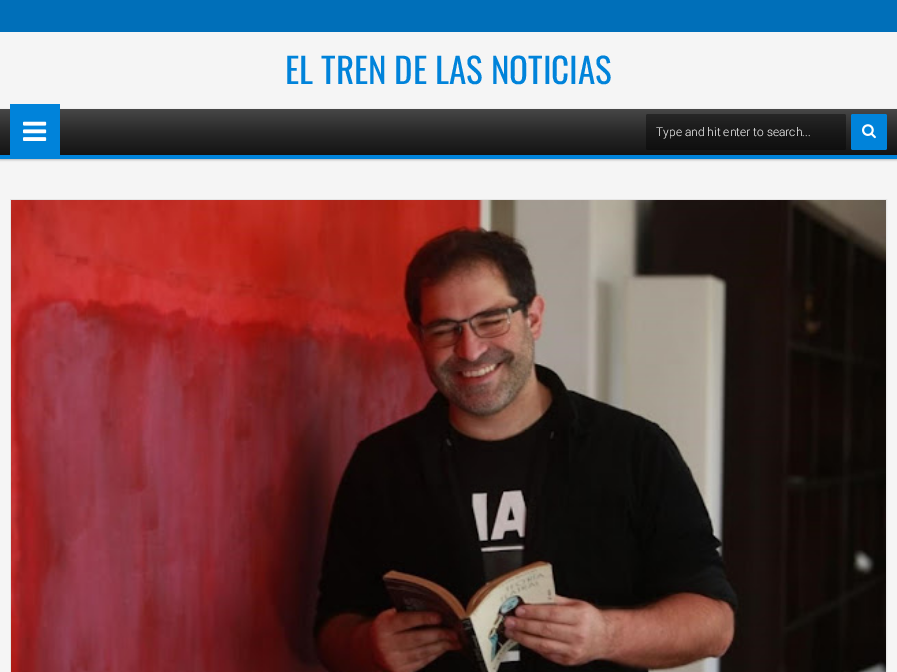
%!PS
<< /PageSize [897 672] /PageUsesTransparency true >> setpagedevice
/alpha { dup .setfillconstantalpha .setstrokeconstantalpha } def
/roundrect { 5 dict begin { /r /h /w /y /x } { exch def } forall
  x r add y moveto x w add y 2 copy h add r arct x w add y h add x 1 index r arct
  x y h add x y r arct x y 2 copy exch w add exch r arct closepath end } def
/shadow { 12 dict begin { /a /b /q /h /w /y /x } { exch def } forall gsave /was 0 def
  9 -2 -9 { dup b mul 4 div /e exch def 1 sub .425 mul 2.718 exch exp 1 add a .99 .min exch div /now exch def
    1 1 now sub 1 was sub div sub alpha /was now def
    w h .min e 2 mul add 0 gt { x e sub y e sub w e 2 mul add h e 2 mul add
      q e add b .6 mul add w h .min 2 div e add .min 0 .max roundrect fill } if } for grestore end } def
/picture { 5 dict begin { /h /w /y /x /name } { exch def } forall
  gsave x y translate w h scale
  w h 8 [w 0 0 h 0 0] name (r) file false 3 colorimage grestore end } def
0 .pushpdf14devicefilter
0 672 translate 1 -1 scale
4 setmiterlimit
0.961 setgray
0 0 897 672 rectfill
0 0.435 0.725 setrgbcolor
0 0 897 32 rectfill
/Oswald-Regular [35 0 0 -35 0 0] selectfont
0 0.514 0.855 setrgbcolor
285 84 moveto (EL TREN DE LAS NOTICIAS) show
0 setgray
0 110 897 50 0 1 0.26 shadow
gsave newpath 0 109 moveto 897 109 lineto 897 155 lineto 0 155 lineto closepath clip newpath
<< /ShadingType 2 /ColorSpace /DeviceRGB /Coords [449 109 449 155] /Extend [true true] /Function << /FunctionType 3 /Domain [0 1] /Functions [<< /FunctionType 2 /Domain [0 1] /C0 [0.278 0.278 0.278] /C1 [0.161 0.161 0.161] /N 1 >> << /FunctionType 2 /Domain [0 1] /C0 [0.161 0.161 0.161] /C1 [0.075 0.075 0.075] /N 1 >>] /Bounds [0.5] /Encode [0 1 0 1] >> >> shfill grestore
0 0.514 0.855 setrgbcolor
0 155 897 4 rectfill
10 104 50 51 rectfill
(img1.rgb) 23 121 24 20 picture
0.4 alpha
0 setgray
646 114 200 36 2 roundrect fill
/Roboto-Light [12 0 0 -12 0 0] selectfont
1 alpha
1 setgray
656 136 moveto (Type and hit enter to search...) show
0 0.514 0.855 setrgbcolor
851 114 36 36 2 roundrect fill
(img2.rgb) 862 124 14 15 picture
0.902 setgray
10.5 199.5 876 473 rectstroke
(img3.rgb) 11 200 875 472 picture
.poppdf14devicefilter showpage
